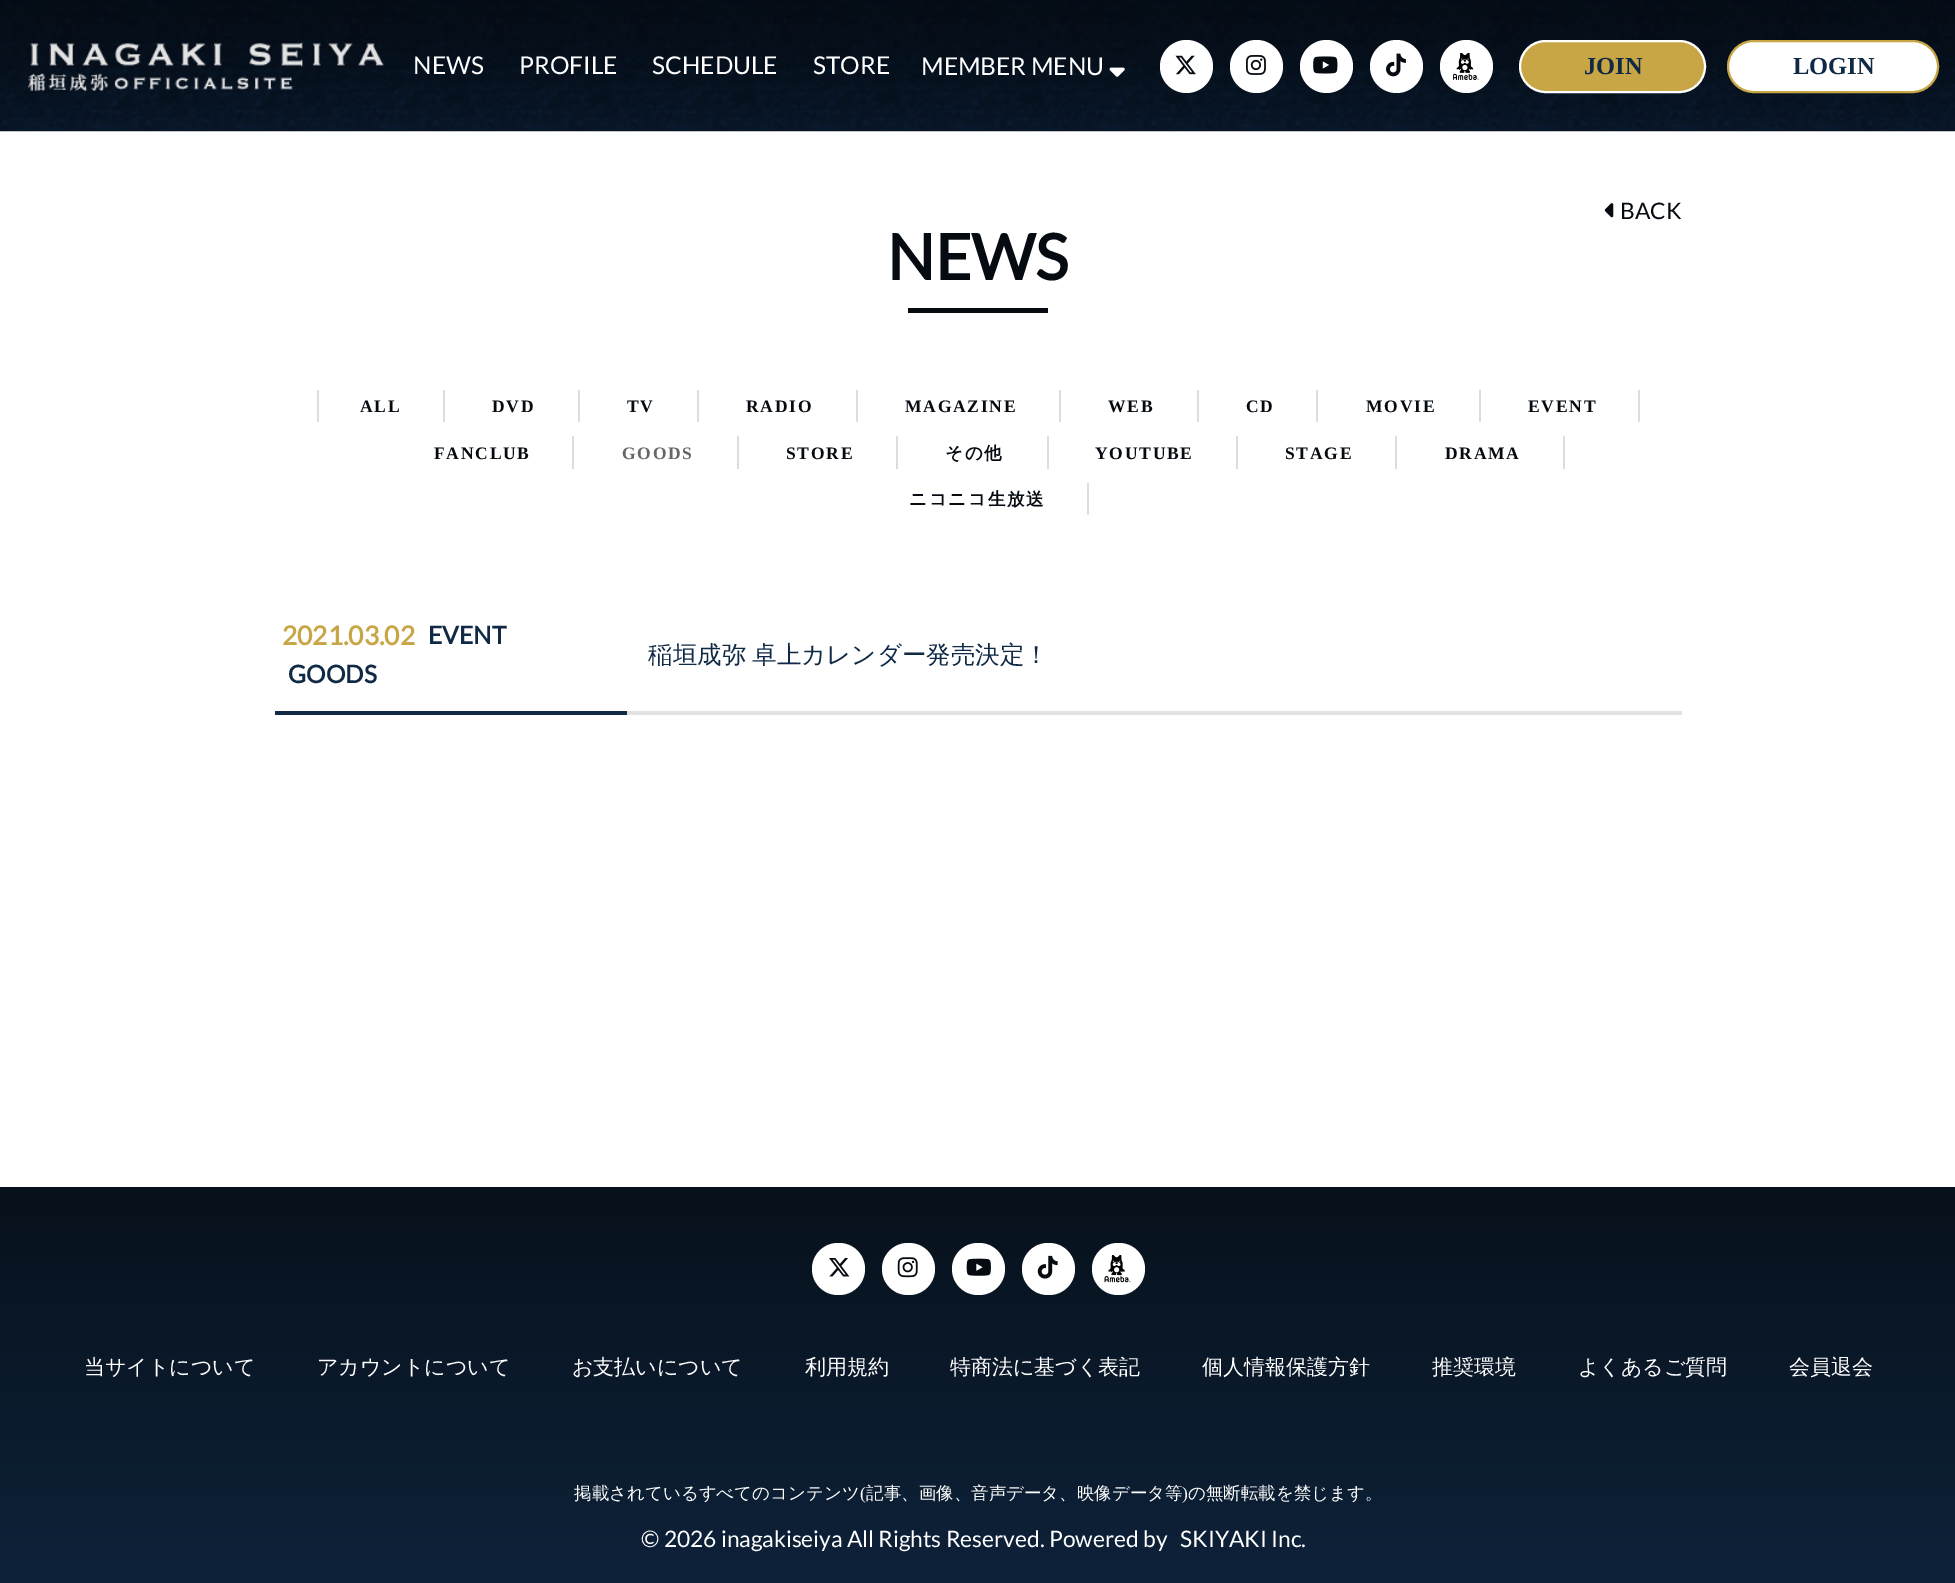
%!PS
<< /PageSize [1955 1583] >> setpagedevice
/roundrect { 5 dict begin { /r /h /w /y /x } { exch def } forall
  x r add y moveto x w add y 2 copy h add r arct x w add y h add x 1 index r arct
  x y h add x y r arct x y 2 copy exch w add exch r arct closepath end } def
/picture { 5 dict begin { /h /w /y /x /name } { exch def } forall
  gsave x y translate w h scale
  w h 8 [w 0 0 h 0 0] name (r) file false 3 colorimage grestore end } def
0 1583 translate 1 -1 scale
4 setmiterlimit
1 setgray
0 0 1955 1583 rectfill
(img1.rgb) 0 0 1955 132 picture
(img2.rgb) 28 42 356 49 picture
/Lato-Regular [24.5 0 0 -24.5 0 0] selectfont
413 74 moveto (NEWS) show
519 74 moveto (PROFILE) show
652 74 moveto (SCHEDULE) show
813 74 moveto (STORE) show
921 75 moveto (MEMBER MENU) show
(img3.rgb) 1109 67 16 10 picture
newpath 1186.5 66.5 26.5 0 360 arc closepath fill
(img4.rgb) 1175 55 21 20 picture
newpath 1256.5 66.5 26.5 0 360 arc closepath fill
(img5.rgb) 1246 55 20 20 picture
newpath 1326.5 66.5 26.5 0 360 arc closepath fill
(img6.rgb) 1313 56 25 18 picture
newpath 1396.5 66.5 26.5 0 360 arc closepath fill
(img7.rgb) 1386 53 20 24 picture
newpath 1466.5 66.5 26.5 0 360 arc closepath fill
(img8.rgb) 1453 53 26 27 picture
0.784 0.651 0.275 setrgbcolor
1520 41 185 51 25.5 roundrect gsave fill grestore
1 setgray
2 setlinewidth
stroke
/LiberationSerif-Bold [24.5 0 0 -24.5 0 0] selectfont
0.063 0.161 0.271 setrgbcolor
1584 74 moveto (JOIN) show
1 setgray
1728 41 210 51 25.5 roundrect gsave fill grestore
0.784 0.651 0.275 setrgbcolor
stroke
0.063 0.161 0.271 setrgbcolor
1793 74 moveto (LOGIN) show
(img9.rgb) 1604 203 10 15 picture
/Lato-Regular [22.75 0 0 -22.75 0 0] selectfont
0.024 0.043 0.067 setrgbcolor
1620 219 moveto (BACK) show
/Lato-Bold [63 0 0 -63 0 0] selectfont
887 280 moveto (NEWS) show
908 308 140 5 rectfill
0.863 0.867 0.867 setrgbcolor
443 390 2 32 rectfill
317 390 2 32 rectfill
/LiberationSerif-Bold [17.5 0 0 -17.5 0 0] selectfont
0.024 0.043 0.067 setrgbcolor
360 412 moveto 1.75 0 (ALL) ashow
0.863 0.867 0.867 setrgbcolor
578 390 2 32 rectfill
0.024 0.043 0.067 setrgbcolor
492 412 moveto 1.75 0 (DVD) ashow
0.863 0.867 0.867 setrgbcolor
697 390 2 32 rectfill
0.024 0.043 0.067 setrgbcolor
627 412 moveto 1.75 0 (TV) ashow
0.863 0.867 0.867 setrgbcolor
856 390 2 32 rectfill
0.024 0.043 0.067 setrgbcolor
746 412 moveto 1.75 0 (RADIO) ashow
0.863 0.867 0.867 setrgbcolor
1059 390 2 32 rectfill
0.024 0.043 0.067 setrgbcolor
905 412 moveto 1.75 0 (MAGAZINE) ashow
0.863 0.867 0.867 setrgbcolor
1197 390 2 32 rectfill
0.024 0.043 0.067 setrgbcolor
1108 412 moveto 1.75 0 (WEB) ashow
0.863 0.867 0.867 setrgbcolor
1316 390 2 32 rectfill
0.024 0.043 0.067 setrgbcolor
1246 412 moveto 1.75 0 (CD) ashow
0.863 0.867 0.867 setrgbcolor
1479 390 2 32 rectfill
0.024 0.043 0.067 setrgbcolor
1366 412 moveto 1.75 0 (MOVIE) ashow
0.863 0.867 0.867 setrgbcolor
1638 390 2 32 rectfill
0.024 0.043 0.067 setrgbcolor
1528 412 moveto 1.75 0 (EVENT) ashow
0.863 0.867 0.867 setrgbcolor
572 436 2 33 rectfill
0.024 0.043 0.067 setrgbcolor
434 459 moveto 1.75 0 (FANCLUB) ashow
0.863 0.867 0.867 setrgbcolor
737 436 2 33 rectfill
0.4 setgray
622 459 moveto 1.75 0 (GOODS) ashow
0.863 0.867 0.867 setrgbcolor
896 436 2 33 rectfill
0.024 0.043 0.067 setrgbcolor
786 459 moveto 1.75 0 (STORE) ashow
0.863 0.867 0.867 setrgbcolor
1047 436 2 33 rectfill
/WenQuanYiZenHei-Bold [17.5 0 0 -17.5 0 0] selectfont
0.024 0.043 0.067 setrgbcolor
945 459 moveto 1.75 0 (その他) ashow
0.863 0.867 0.867 setrgbcolor
1236 436 2 33 rectfill
/LiberationSerif-Bold [17.5 0 0 -17.5 0 0] selectfont
0.024 0.043 0.067 setrgbcolor
1095 459 moveto 1.75 0 (YOUTUBE) ashow
0.863 0.867 0.867 setrgbcolor
1395 436 2 33 rectfill
0.024 0.043 0.067 setrgbcolor
1285 459 moveto 1.75 0 (STAGE) ashow
0.863 0.867 0.867 setrgbcolor
1563 436 2 33 rectfill
0.024 0.043 0.067 setrgbcolor
1445 459 moveto 1.75 0 (DRAMA) ashow
0.863 0.867 0.867 setrgbcolor
1087 483 2 32 rectfill
/WenQuanYiZenHei-Bold [17.5 0 0 -17.5 0 0] selectfont
0.024 0.043 0.067 setrgbcolor
909 505 moveto 1.75 0 (ニコニコ生放送) ashow
0.886 setgray
627 711 1055 4 rectfill
/Lato-Bold [26.25 0 0 -26.25 0 0] selectfont
0.784 0.651 0.275 setrgbcolor
282 645 moveto (2021.03.02) show
/Lato-Bold [24.5 0 0 -24.5 0 0] selectfont
0.063 0.161 0.271 setrgbcolor
428 644 moveto (EVENT) show
288 683 moveto (GOODS) show
/WenQuanYiZenHei-Medium [24.5 0 0 -24.5 0 0] selectfont
648 663 moveto -1 0 32 (稲垣成弥 卓上カレンダー発売決定！) widthshow
275 711 352 4 rectfill
gsave newpath 0 1187 moveto 1955 1187 lineto 1955 1583 lineto 0 1583 lineto closepath clip newpath
<< /ShadingType 2 /ColorSpace /DeviceRGB /Coords [978 1186 978 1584] /Extend [true true] /Function << /FunctionType 2 /Domain [0 1] /C0 [0.027 0.067 0.106] /C1 [0.055 0.133 0.227] /N 1 >> >> shfill grestore
1 setgray
812 1243 53 52 26 roundrect fill
(img10.rgb) 829 1258 21 19 picture
882 1243 53 52 26 roundrect fill
(img11.rgb) 897 1257 21 21 picture
952 1243 53 52 26 roundrect fill
(img12.rgb) 966 1258 25 18 picture
1022 1243 53 52 26 roundrect fill
(img13.rgb) 1037 1255 21 24 picture
1092 1243 53 52 26 roundrect fill
(img14.rgb) 1104 1255 27 28 picture
/WenQuanYiZenHei-Medium [21 0 0 -21 0 0] selectfont
84 1374 moveto (当サイトについて) show
317 1374 moveto (アカウントについて) show
572 1374 moveto (お支払いについて) show
805 1374 moveto (利用規約) show
950 1374 moveto (特商法に基づく表記) show
1202 1374 moveto (個人情報保護方針) show
1432 1374 moveto (推奨環境) show
1578 1374 moveto (よくあるご質問) show
1789 1374 moveto (会員退会) show
/WenQuanYiZenHei-Medium [17.5 0 0 -17.5 0 0] selectfont
574 1499 moveto (掲載されているすべてのコンテンツ) show
/LiberationSerif-Regular [17.5 0 0 -17.5 0 0] selectfont
860 1499 moveto (\() show
/WenQuanYiZenHei-Medium [17.5 0 0 -17.5 0 0] selectfont
866 1499 moveto (記事、画像、音声データ、映像データ等) show
/LiberationSerif-Regular [17.5 0 0 -17.5 0 0] selectfont
1182 1499 moveto (\)) show
/WenQuanYiZenHei-Medium [17.5 0 0 -17.5 0 0] selectfont
1188 1499 moveto (の無断転載を禁じます。) show
/Lato-Regular [22.75 0 0 -22.75 0 0] selectfont
641 1547 moveto (© 2026 inagakiseiya All Rights Reserved. Powered by) show
1180 1547 moveto (SKIYAKI Inc.) show
showpage
